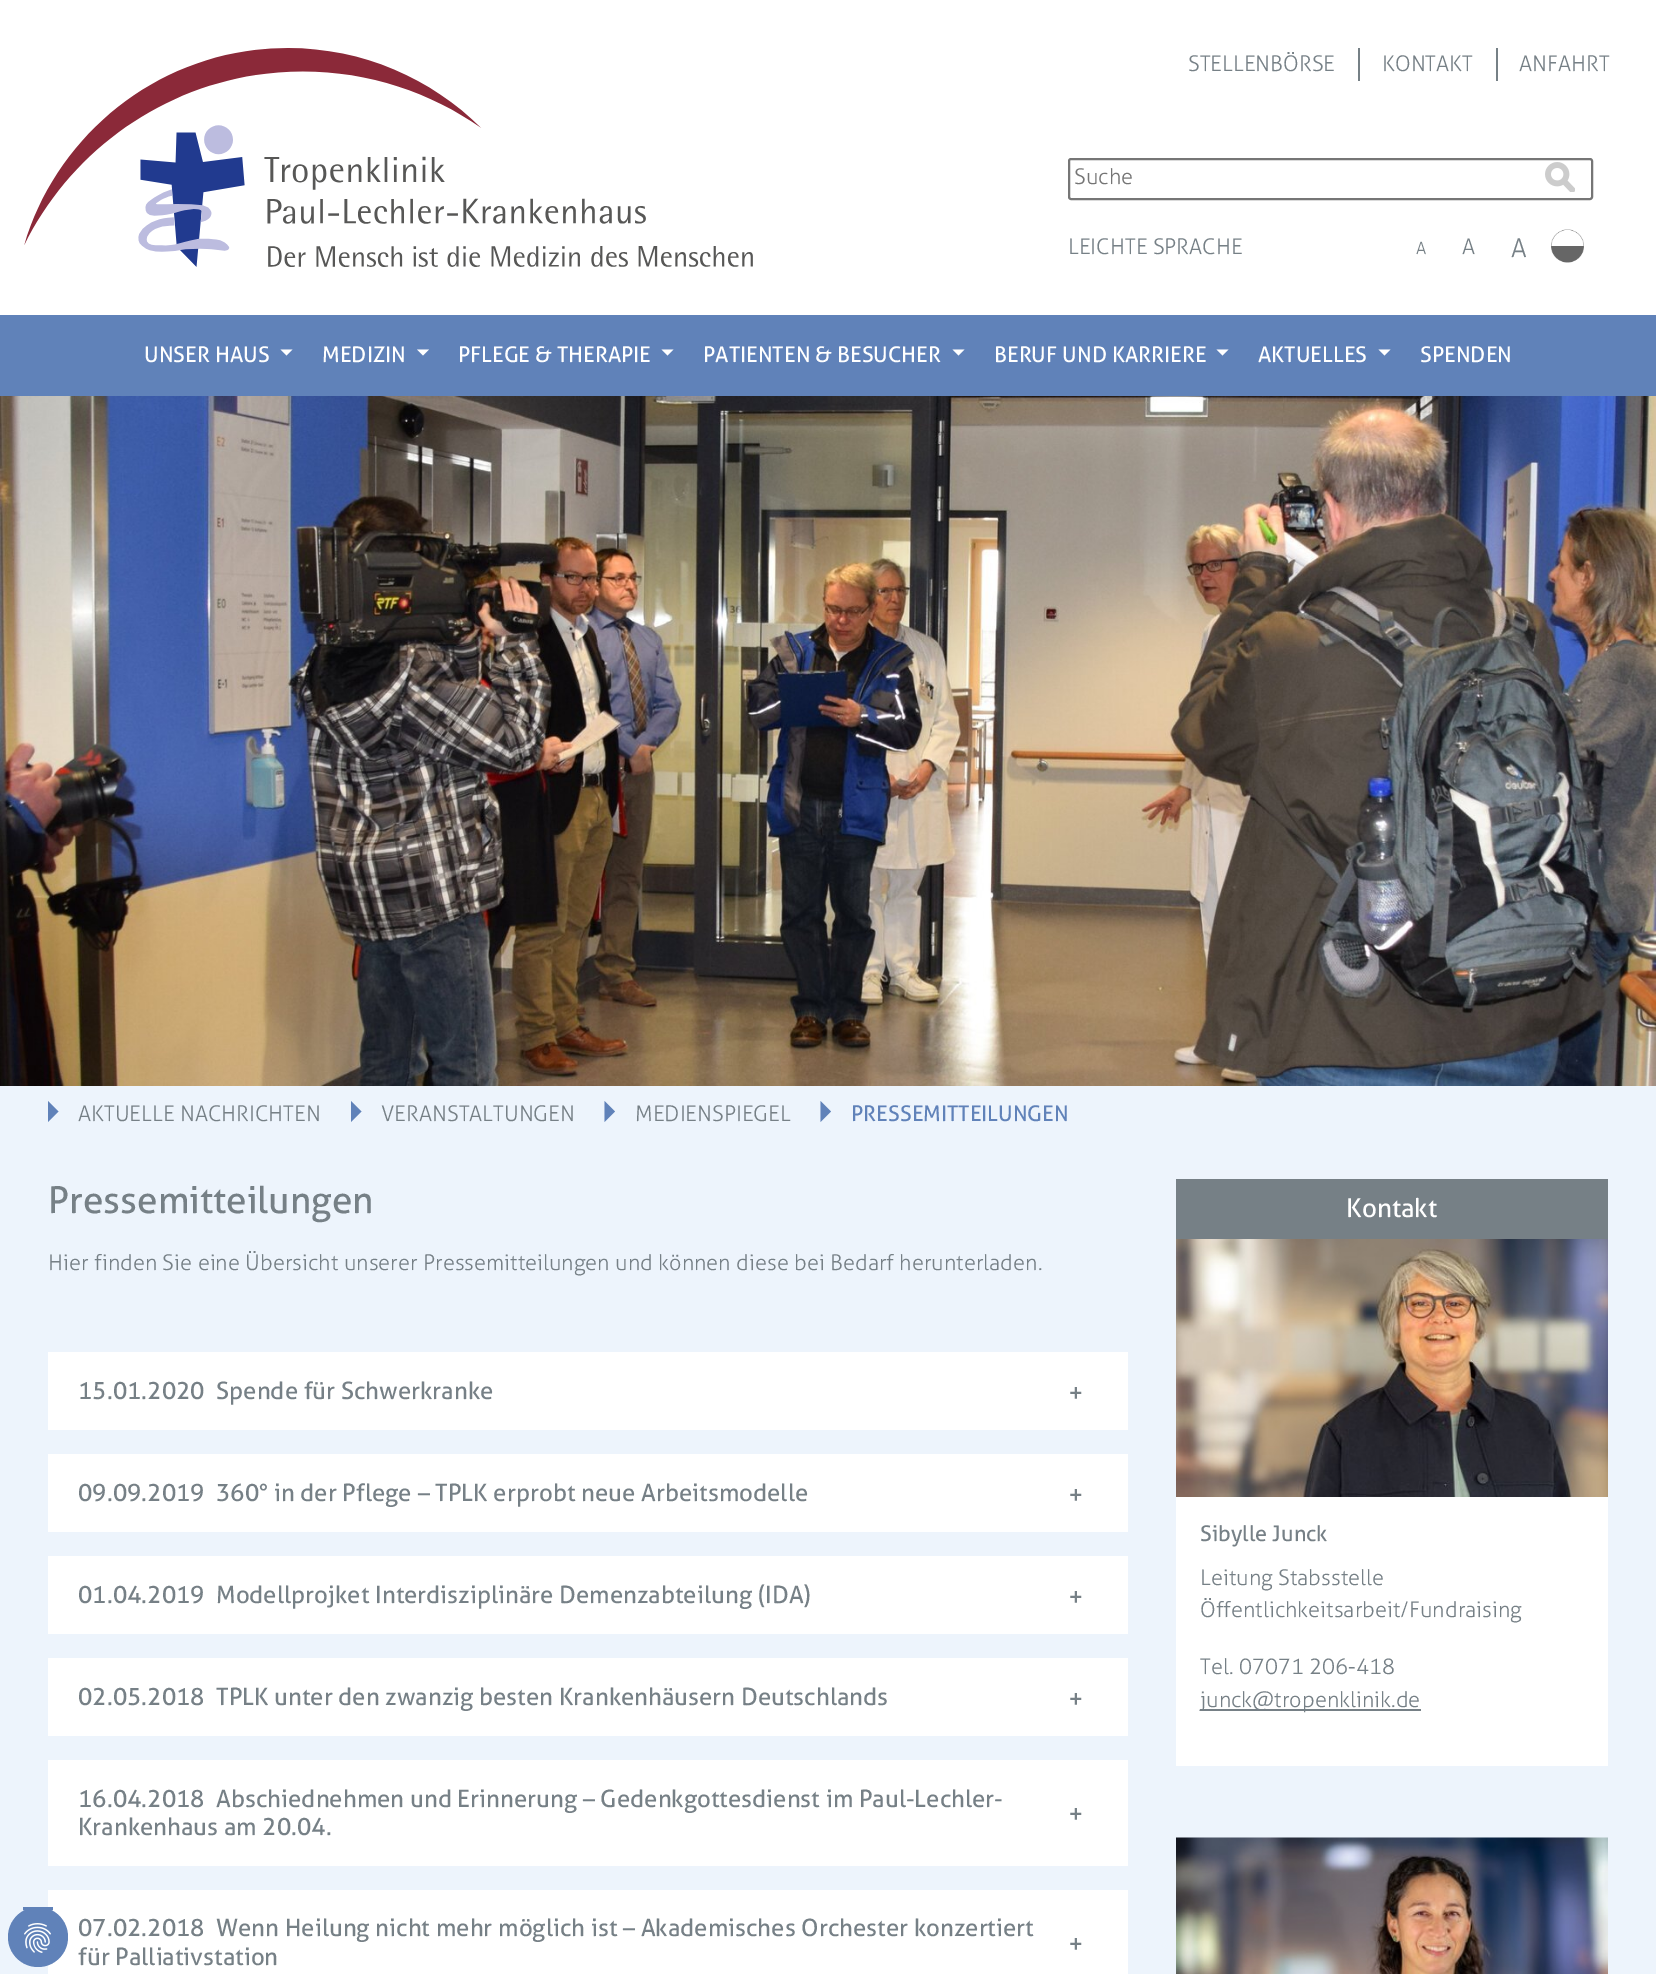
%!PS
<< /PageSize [1656 1974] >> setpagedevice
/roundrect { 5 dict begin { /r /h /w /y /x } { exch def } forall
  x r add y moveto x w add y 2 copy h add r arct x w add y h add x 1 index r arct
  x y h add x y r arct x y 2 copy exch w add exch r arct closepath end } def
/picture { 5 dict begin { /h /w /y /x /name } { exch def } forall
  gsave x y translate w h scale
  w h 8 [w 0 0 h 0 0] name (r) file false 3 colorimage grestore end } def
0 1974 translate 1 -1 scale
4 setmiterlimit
0.929 0.957 0.988 setrgbcolor
0 0 1656 1974 rectfill
1 setgray
48 1890 1080 84 rectfill
0.376 0.51 0.725 setrgbcolor
newpath 38 1937 30 0 360 arc closepath fill
23 1907 30 3 rectfill
(img1.rgb) 24 1923 27 30 picture
1 setgray
0 0 1656 315 rectfill
(img2.rgb) 24 48 729 219 picture
0.463 0.502 0.525 setrgbcolor
1358 48 2 33 rectfill
/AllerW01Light-Light [21.7 0 0 -21.7 0 0] selectfont
1188 71 moveto (STELLENBÖRSE) show
1496 48 2 33 rectfill
1382 71 moveto (KONTAKT) show
1519 71 moveto (ANFAHRT) show
0.463 setgray
2 setlinewidth
1069 159 523 40 2 roundrect stroke
0.459 setgray
1074 184 moveto (Suche) show
(img3.rgb) 1545 162 30 30 picture
0.463 0.502 0.525 setrgbcolor
1068 254 moveto (LEICHTE SPRACHE) show
/AllerW01Light-Light [17 0 0 -17 0 0] selectfont
1416 254 moveto (A) show
/AllerW01Light-Light [21.7 0 0 -21.7 0 0] selectfont
1462 254 moveto (A) show
/AllerW01Light-Light [26 0 0 -26 0 0] selectfont
1511 257 moveto (A) show
(img4.rgb) 1551 229 33 34 picture
0.376 0.51 0.725 setrgbcolor
0 315 1656 81 rectfill
/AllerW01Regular-Regular [21.7 0 0 -21.7 0 0] selectfont
1 setgray
144 362 moveto (UNSER HAUS) show
newpath 280.5 349.5 moveto 292.5 349.5 lineto 286.5 355.5 lineto closepath fill
322 362 moveto (MEDIZIN) show
newpath 417 349.5 moveto 429 349.5 lineto 423 355.5 lineto closepath fill
458 362 moveto (PFLEGE & THERAPIE) show
newpath 661.5 349.5 moveto 673.5 349.5 lineto 667.5 355.5 lineto closepath fill
703 362 moveto (PATIENTEN & BESUCHER) show
newpath 952.5 349.5 moveto 964.5 349.5 lineto 958.5 355.5 lineto closepath fill
994 362 moveto (BERUF UND KARRIERE) show
newpath 1216.5 349.5 moveto 1228.5 349.5 lineto 1222.5 355.5 lineto closepath fill
1258 362 moveto (AKTUELLES) show
newpath 1378.5 349.5 moveto 1390.5 349.5 lineto 1384.5 355.5 lineto closepath fill
1420 362 moveto (SPENDEN) show
(img5.rgb) 0 396 1656 690 picture
0.376 0.51 0.725 setrgbcolor
newpath 48 1122 moveto 48 1101 lineto 58.5 1111.5 lineto closepath fill
/AllerW01Light-Light [21.7 0 0 -21.7 0 0] selectfont
0.463 0.502 0.525 setrgbcolor
78 1121 moveto (AKTUELLE NACHRICHTEN) show
0.376 0.51 0.725 setrgbcolor
newpath 351 1122 moveto 351 1101 lineto 361.5 1111.5 lineto closepath fill
0.463 0.502 0.525 setrgbcolor
381 1121 moveto (VERANSTALTUNGEN) show
0.376 0.51 0.725 setrgbcolor
newpath 604.5 1122 moveto 604.5 1101 lineto 615 1111.5 lineto closepath fill
0.463 0.502 0.525 setrgbcolor
635 1121 moveto (MEDIENSPIEGEL) show
0.376 0.51 0.725 setrgbcolor
newpath 820.5 1122 moveto 820.5 1101 lineto 831 1111.5 lineto closepath fill
/AllerW01Regular-Regular [21.7 0 0 -21.7 0 0] selectfont
851 1121 moveto (PRESSEMITTEILUNGEN) show
/AllerW01Regular-Regular [37 0 0 -37 0 0] selectfont
0.463 0.502 0.525 setrgbcolor
48 1213 moveto (Pressemitteilungen) show
/AllerW01Light-Light [21.7 0 0 -21.7 0 0] selectfont
48 1270 moveto (Hier finden Sie eine Übersicht unserer Pressemitteilungen und können diese bei Bedarf herunterladen.) show
1 setgray
48 1352 1080 78 rectfill
/AllerW01Regular-Regular [24 0 0 -24 0 0] selectfont
0.463 0.502 0.525 setrgbcolor
78 1399 moveto (15.01.2020) show
216 1399 moveto (Spende für Schwerkranke) show
/AllerW01Regular-Regular [26 0 0 -26 0 0] selectfont
1068 1402 moveto (+) show
1 setgray
48 1454 1080 78 rectfill
/AllerW01Regular-Regular [24 0 0 -24 0 0] selectfont
0.463 0.502 0.525 setrgbcolor
78 1501 moveto (09.09.2019) show
216 1501 moveto (360° in der Pflege – TPLK erprobt neue Arbeitsmodelle) show
/AllerW01Regular-Regular [26 0 0 -26 0 0] selectfont
1068 1504 moveto (+) show
1 setgray
48 1556 1080 78 rectfill
/AllerW01Regular-Regular [24 0 0 -24 0 0] selectfont
0.463 0.502 0.525 setrgbcolor
78 1603 moveto (01.04.2019) show
216 1603 moveto (Modellprojket Interdisziplinäre Demenzabteilung \(IDA\)) show
/AllerW01Regular-Regular [26 0 0 -26 0 0] selectfont
1068 1606 moveto (+) show
1 setgray
48 1658 1080 78 rectfill
/AllerW01Regular-Regular [24 0 0 -24 0 0] selectfont
0.463 0.502 0.525 setrgbcolor
78 1705 moveto (02.05.2018) show
216 1705 moveto (TPLK unter den zwanzig besten Krankenhäusern Deutschlands) show
/AllerW01Regular-Regular [26 0 0 -26 0 0] selectfont
1068 1708 moveto (+) show
1 setgray
48 1760 1080 106 rectfill
/AllerW01Regular-Regular [24 0 0 -24 0 0] selectfont
0.463 0.502 0.525 setrgbcolor
78 1807 moveto (16.04.2018) show
216 1807 moveto (Abschiednehmen und Erinnerung – Gedenkgottesdienst im Paul-Lechler-) show
78 1835 moveto (Krankenhaus am 20.04.) show
/AllerW01Regular-Regular [26 0 0 -26 0 0] selectfont
1068 1823 moveto (+) show
/AllerW01Regular-Regular [24 0 0 -24 0 0] selectfont
78 1936 moveto (07.02.2018) show
216 1936 moveto (Wenn Heilung nicht mehr möglich ist – Akademisches Orchester konzertiert) show
78 1965 moveto (für Palliativstation) show
/AllerW01Regular-Regular [26 0 0 -26 0 0] selectfont
1068 1953 moveto (+) show
1176 1179 432 60 rectfill
1 setgray
1346 1217 moveto (Kontakt) show
1176 1497 432 269 rectfill
(img6.rgb) 1176 1239 432 258 picture
/AllerW01Regular-Regular [21.7 0 0 -21.7 0 0] selectfont
0.463 0.502 0.525 setrgbcolor
1200 1541 moveto (Sibylle Junck) show
/AllerW01Light-Light [21.7 0 0 -21.7 0 0] selectfont
1200 1585 moveto (Leitung Stabsstelle) show
1200 1617 moveto (Öffentlichkeitsarbeit/Fundraising) show
1200 1674 moveto (Tel. 07071 206-418) show
1200 1709 221 2 rectfill
1200 1707 moveto (junck@tropenklinik.de) show
(img7.rgb) 1176 1837 432 137 picture
showpage
